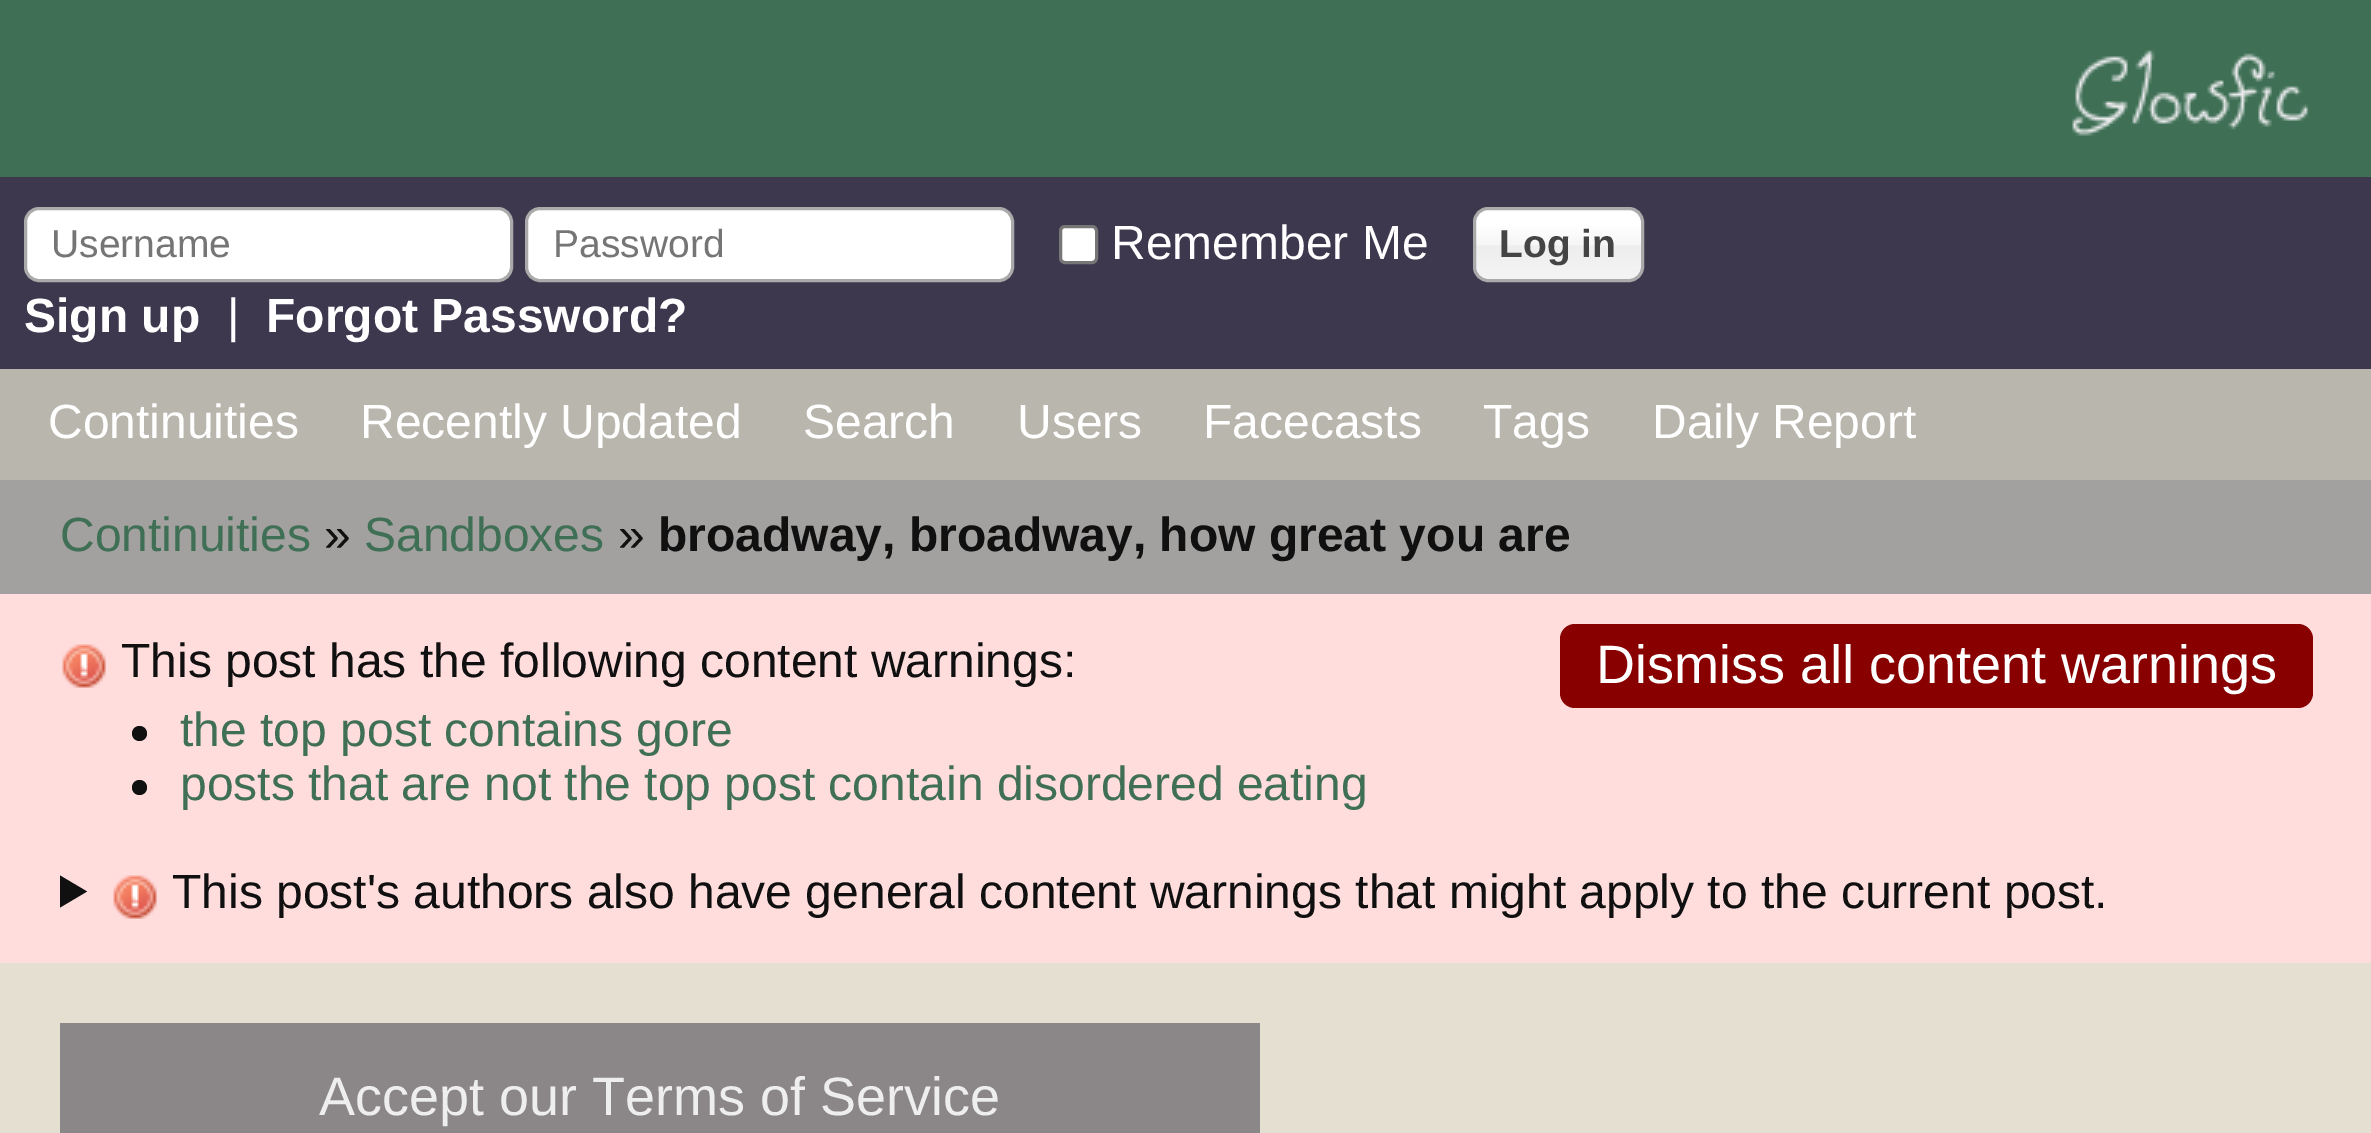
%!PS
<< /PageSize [2371 1133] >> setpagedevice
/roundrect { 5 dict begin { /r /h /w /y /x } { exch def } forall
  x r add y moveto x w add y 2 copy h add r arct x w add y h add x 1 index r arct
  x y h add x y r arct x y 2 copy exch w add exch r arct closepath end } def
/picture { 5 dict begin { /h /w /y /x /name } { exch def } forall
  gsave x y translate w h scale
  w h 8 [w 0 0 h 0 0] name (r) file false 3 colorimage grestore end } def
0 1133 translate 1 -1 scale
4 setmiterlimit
0.898 0.875 0.82 setrgbcolor
0 0 2371 1133 rectfill
0.725 0.714 0.678 setrgbcolor
0 369 2371 111 rectfill
0.247 0.439 0.333 setrgbcolor
0 0 2371 177 rectfill
(img1.rgb) 2072 50 237 86 picture
0.243 0.22 0.31 setrgbcolor
0 177 2371 192 rectfill
1 setgray
25.5 208.5 486 72 13.5 roundrect gsave fill grestore
0.667 setgray
3 setlinewidth
stroke
/LiberationSans-Regular [39 0 0 -39 0 0] selectfont
0.459 setgray
51 257 moveto (Username) show
1 setgray
526.5 208.5 486 72 13.5 roundrect gsave fill grestore
0.667 setgray
stroke
0.459 setgray
553 257 moveto (Password) show
1 setgray
1060.5 226.5 36 36 4.5 roundrect gsave fill grestore
0.463 setgray
stroke
/LiberationSans-Regular [48 0 0 -48 0 0] selectfont
1 setgray
1111 259 moveto (Remember Me) show
gsave 1476 210 165 69 12 roundrect clip newpath
<< /ShadingType 2 /ColorSpace /DeviceRGB /Coords [1559 210 1559 279] /Extend [true true] /Function << /FunctionType 3 /Domain [0 1] /Functions [<< /FunctionType 2 /Domain [0 1] /C0 [1 1 1] /C1 [1 1 1] /N 1 >> << /FunctionType 2 /Domain [0 1] /C0 [1 1 1] /C1 [0.965 0.965 0.965] /N 1 >> << /FunctionType 2 /Domain [0 1] /C0 [0.965 0.965 0.965] /C1 [0.933 0.933 0.933] /N 1 >> << /FunctionType 2 /Domain [0 1] /C0 [0.933 0.933 0.933] /C1 [0.957 0.957 0.957] /N 1 >>] /Bounds [0.2 0.5 0.52] /Encode [0 1 0 1 0 1 0 1] >> >> shfill grestore
0.667 setgray
1474.5 208.5 168 72 13.5 roundrect stroke
/LiberationSans-Bold [39 0 0 -39 0 0] selectfont
0.267 setgray
1499 257 moveto (Log in) show
/LiberationSans-Bold [48 0 0 -48 0 0] selectfont
1 setgray
24 332 moveto (Sign up) show
/LiberationSans-Regular [48 0 0 -48 0 0] selectfont
227 332 moveto (|) show
/LiberationSans-Bold [48 0 0 -48 0 0] selectfont
266 332 moveto (Forgot Password?) show
/LiberationSans-Regular [48 0 0 -48 0 0] selectfont
48 438 moveto (Continuities) show
360 438 moveto (Recently Updated) show
803 438 moveto (Search) show
1017 438 moveto (Users) show
1203 438 moveto (Facecasts) show
1483 438 moveto (Tags) show
1652 438 moveto (Daily Report) show
0.639 0.631 0.627 setrgbcolor
0 480 2371 114 rectfill
0.247 0.439 0.333 setrgbcolor
60 551 moveto (Continuities) show
0.063 setgray
324 551 moveto (») show
0.247 0.439 0.333 setrgbcolor
364 551 moveto (Sandboxes) show
0.063 setgray
618 551 moveto (») show
/LiberationSans-Bold [48 0 0 -48 0 0] selectfont
658 551 moveto (broadway, broadway, how great you are) show
1 0.867 0.867 setrgbcolor
0 594 2371 369 rectfill
(img2.rgb) 62 644 44 44 picture
/LiberationSans-Regular [48 0 0 -48 0 0] selectfont
0.063 setgray
121 677 moveto (This post has the following content warnings:) show
newpath 139.5 733.5 7.5 0 360 arc closepath fill
0.247 0.439 0.333 setrgbcolor
180 746 moveto (the top post contains gore) show
0.063 setgray
newpath 139.5 787.5 7.5 0 360 arc closepath fill
0.247 0.439 0.333 setrgbcolor
180 800 moveto (posts that are not the top post contain disordered eating) show
0.063 setgray
newpath 60 875.5 moveto 87 891.5 lineto 60 907.5 lineto closepath fill
(img2.rgb) 113 875 44 44 picture
172 908 moveto (This post's authors also have general content warnings that might apply to the current post.) show
0.533 0 0 setrgbcolor
1560 624 753 84 15 roundrect fill
/LiberationSans-Regular [54 0 0 -54 0 0] selectfont
1 setgray
1596 683 moveto (Dismiss all content warnings) show
0.545 0.525 0.529 setrgbcolor
60 1023 1200 110 rectfill
0.933 setgray
319 1115 moveto (Accept our Terms of Service) show
showpage
